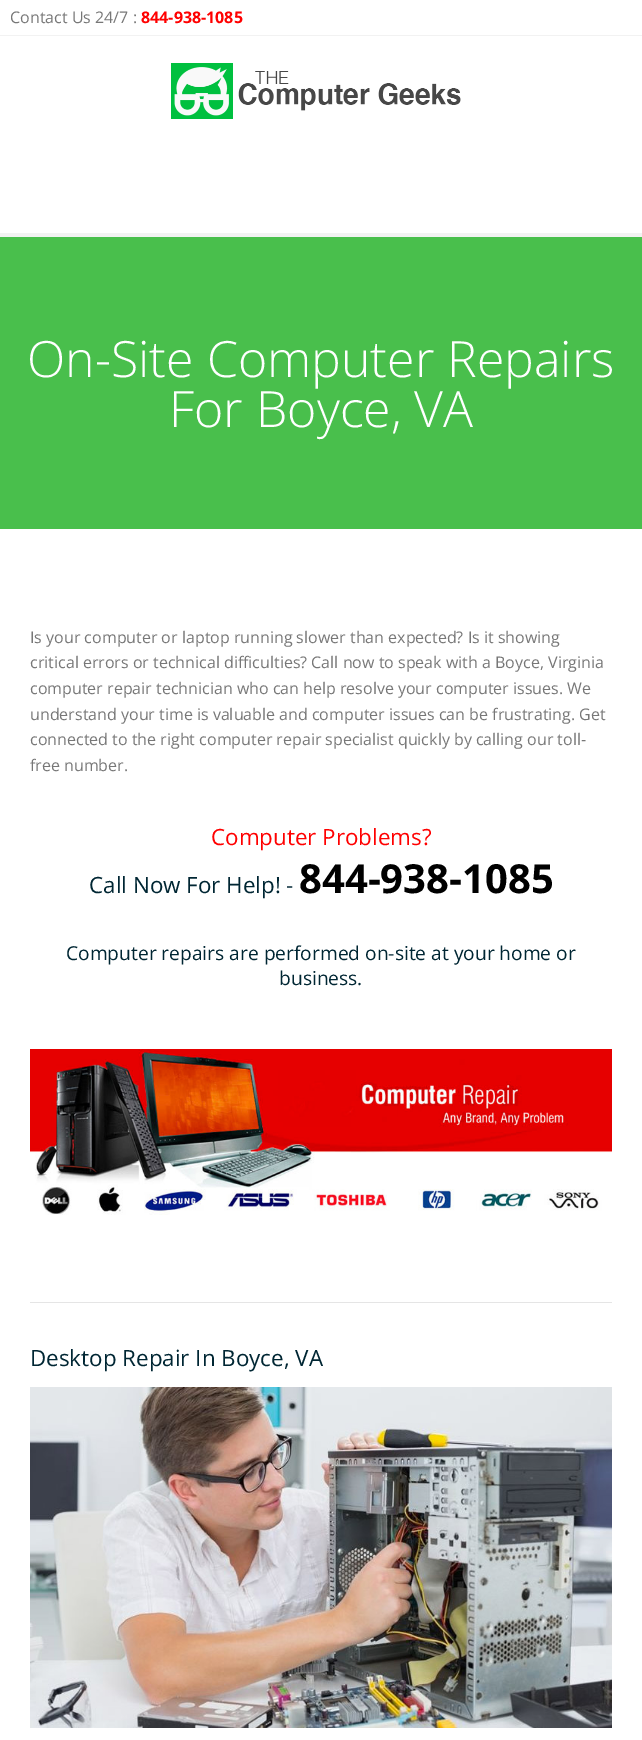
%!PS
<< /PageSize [642 1740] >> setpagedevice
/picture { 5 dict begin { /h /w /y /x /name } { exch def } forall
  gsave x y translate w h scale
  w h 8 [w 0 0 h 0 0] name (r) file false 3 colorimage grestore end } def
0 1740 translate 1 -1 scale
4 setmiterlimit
1 setgray
0 0 642 1740 rectfill
/OpenSans-Regular [16 0 0 -16 0 0] selectfont
0.467 setgray
10 23 moveto (Contact Us 24/7 :) show
/OpenSans-Bold [16 0 0 -16 0 0] selectfont
1 0 0 setrgbcolor
141 23 moveto (844-938-1085) show
0.949 setgray
0 35 642 1 rectfill
0 233 642 4 rectfill
(img1.rgb) 171 63 290 56 picture
0.286 0.749 0.298 setrgbcolor
0 237 642 292 rectfill
/OpenSans-Light [50 0 0 -50 0 0] selectfont
1 setgray
27 377 moveto (On-Site Computer Repairs) show
169 427 moveto (For Boyce, VA) show
/OpenSans-Regular [16 0 0 -16 0 0] selectfont
0.467 setgray
30 643 moveto (Is your computer or laptop running slower than expected? Is it showing) show
30 668 moveto (critical errors or technical difficulties? Call now to speak with a Boyce, Virginia) show
30 694 moveto (computer repair technician who can help resolve your computer issues. We) show
30 720 moveto (understand your time is valuable and computer issues can be frustrating. Get) show
30 745 moveto (connected to the right computer repair specialist quickly by calling our toll-) show
30 771 moveto (free number.) show
/OpenSans-Regular [22.4 0 0 -22.4 0 0] selectfont
1 0 0 setrgbcolor
211 845 moveto (Computer Problems?) show
0 0.149 0.2 setrgbcolor
89 893 moveto (Call Now For Help! -) show
/OpenSans-Bold [40 0 0 -40 0 0] selectfont
0 setgray
299 893 moveto (844-938-1085) show
/OpenSans-Regular [19.2 0 0 -19.2 0 0] selectfont
0 0.149 0.2 setrgbcolor
66 960 moveto (Computer repairs are performed on-site at your home or) show
279 985 moveto (business.) show
(img2.rgb) 30 1049 582 166 picture
0.898 setgray
30 1302 582 1 rectfill
/OpenSans-Regular [22.4 0 0 -22.4 0 0] selectfont
0 0.149 0.2 setrgbcolor
30 1366 moveto (Desktop Repair In Boyce, VA) show
(img3.rgb) 30 1387 582 341 picture
showpage
